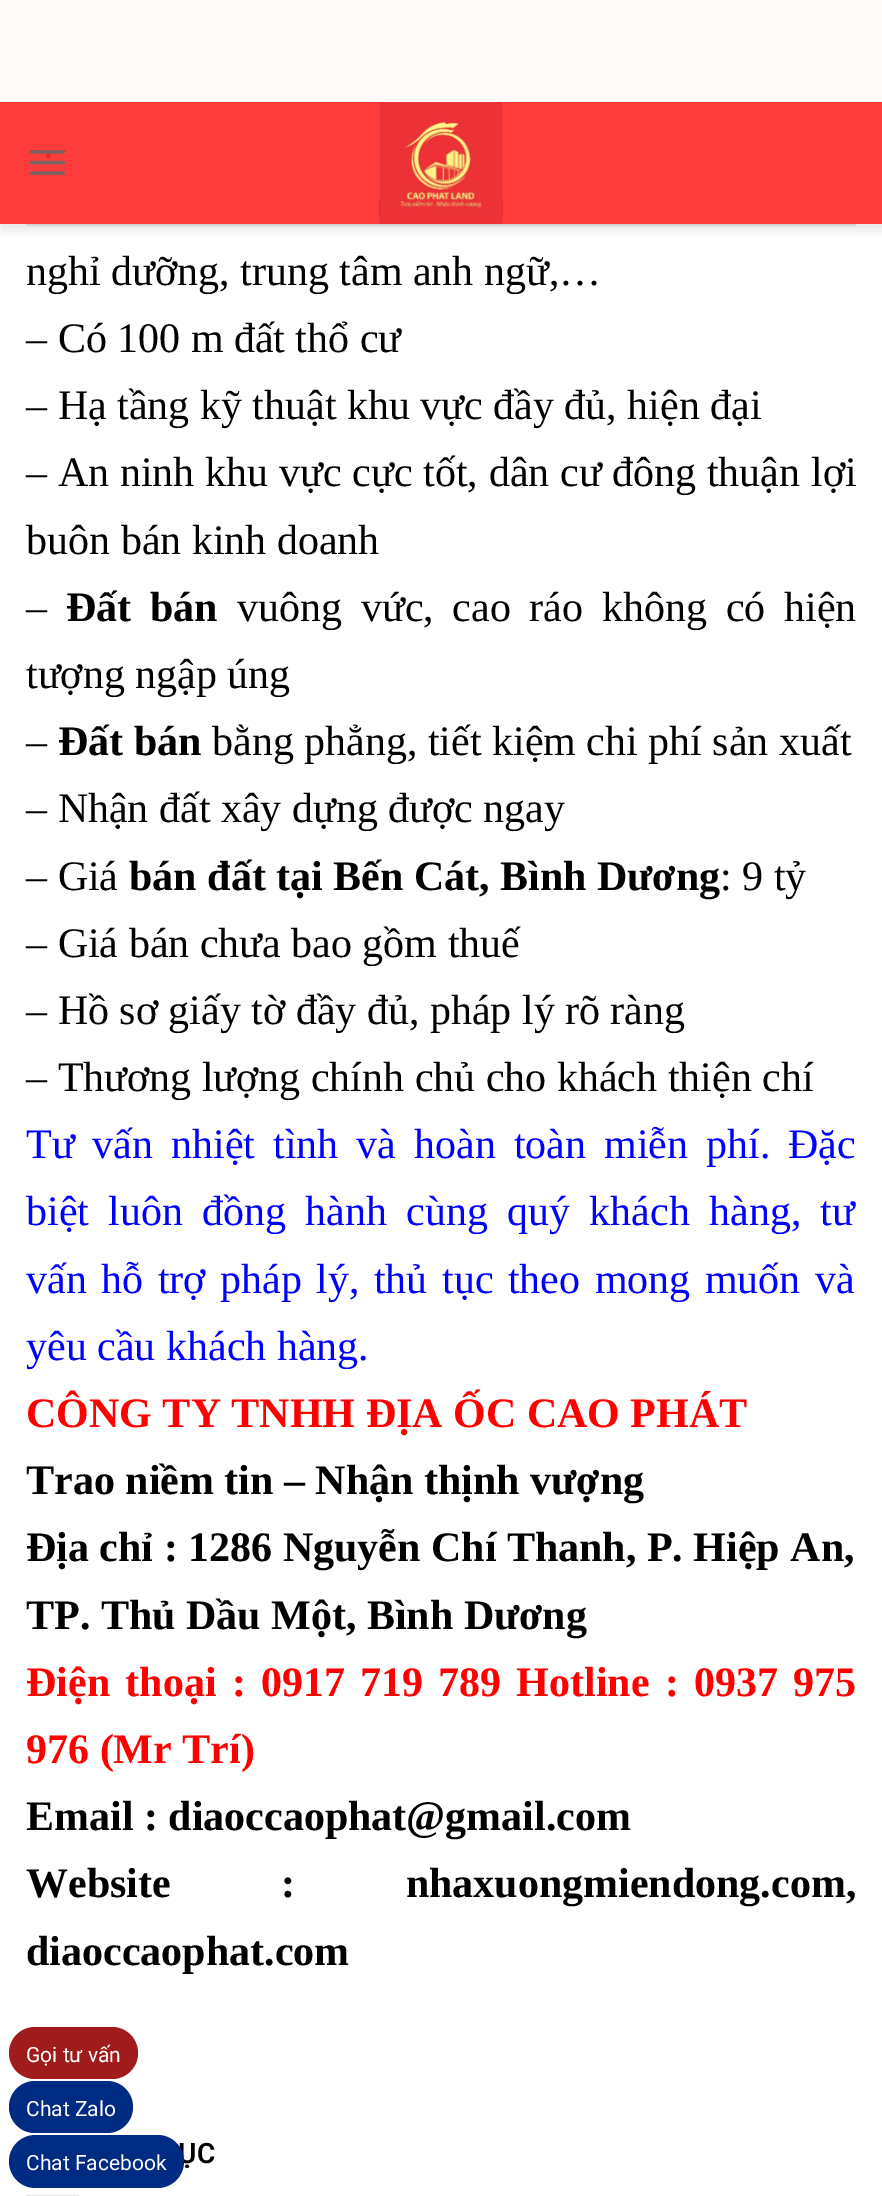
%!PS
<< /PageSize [882 2196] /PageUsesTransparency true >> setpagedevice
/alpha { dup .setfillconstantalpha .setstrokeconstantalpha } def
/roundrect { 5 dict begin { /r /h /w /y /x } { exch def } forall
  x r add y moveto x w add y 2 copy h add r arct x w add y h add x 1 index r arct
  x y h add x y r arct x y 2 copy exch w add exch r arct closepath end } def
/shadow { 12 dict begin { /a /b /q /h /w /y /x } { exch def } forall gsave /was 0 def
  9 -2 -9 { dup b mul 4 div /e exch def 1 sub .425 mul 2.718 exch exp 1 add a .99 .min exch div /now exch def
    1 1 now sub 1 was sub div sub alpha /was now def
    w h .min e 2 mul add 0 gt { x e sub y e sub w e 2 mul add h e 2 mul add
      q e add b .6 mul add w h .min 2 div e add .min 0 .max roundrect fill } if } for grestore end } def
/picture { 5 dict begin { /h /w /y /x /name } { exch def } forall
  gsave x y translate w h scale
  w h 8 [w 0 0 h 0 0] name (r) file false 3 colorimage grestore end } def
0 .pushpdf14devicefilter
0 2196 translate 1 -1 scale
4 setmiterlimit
1 setgray
0 0 882 2196 rectfill
gsave
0 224 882 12 rectclip
0 setgray
2 2 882 224 0 9 0.15 shadow
grestore
0.7 alpha
1 0.157 0.157 setrgbcolor
0 0 882 224 rectfill
0 0 882 224 rectfill
1 alpha
(img2.rgb) 379 101 124 123 picture
0.98 alpha
1 setgray
0 0 882 102 rectfill
1 alpha
(img1.rgb) 29 150 37 25 picture
0.1 alpha
0 setgray
26 224 830 2 rectfill
/LiberationSerif-Regular [42 0 0 -42 0 0] selectfont
1 alpha
26 285 moveto (nghỉ dưỡng, trung tâm anh ngữ,…) show
26 352 moveto (– Có 100 m đất thổ cư) show
26 419 moveto (– Hạ tầng kỹ thuật khu vực đầy đủ, hiện đại) show
26 486 moveto 0.25 0 32 (– An ninh khu vực cực tốt, dân cư đông thuận lợi) widthshow
26 554 moveto (buôn bán kinh doanh) show
26 621 moveto (–) show
/LiberationSerif-Bold [42 0 0 -42 0 0] selectfont
66 621 moveto 8 0 32 (Đất bán) widthshow
/LiberationSerif-Regular [42 0 0 -42 0 0] selectfont
237 621 moveto 8.25 0 32 (vuông vức, cao ráo không có hiện) widthshow
26 688 moveto (tượng ngập úng) show
26 755 moveto (–) show
/LiberationSerif-Bold [42 0 0 -42 0 0] selectfont
58 755 moveto (Đất bán) show
/LiberationSerif-Regular [42 0 0 -42 0 0] selectfont
212 755 moveto (bằng phẳng, tiết kiệm chi phí sản xuất) show
26 822 moveto (– Nhận đất xây dựng được ngay) show
26 890 moveto (– Giá) show
/LiberationSerif-Bold [42 0 0 -42 0 0] selectfont
129 890 moveto (bán đất tại Bến Cát, Bình Dương) show
/LiberationSerif-Regular [42 0 0 -42 0 0] selectfont
720 890 moveto (: 9 tỷ) show
26 957 moveto (– Giá bán chưa bao gồm thuế) show
26 1024 moveto (– Hồ sơ giấy tờ đầy đủ, pháp lý rõ ràng) show
26 1091 moveto (– Thương lượng chính chủ cho khách thiện chí) show
0 0 1 setrgbcolor
26 1158 moveto 7.5 0 32 (Tư vấn nhiệt tình và hoàn toàn miễn phí. Đặc) widthshow
26 1225 moveto 8.75 0 32 (biệt luôn đồng hành cùng quý khách hàng, tư) widthshow
26 1293 moveto 4 0 32 (vấn hỗ trợ pháp lý, thủ tục theo mong muốn và) widthshow
26 1360 moveto (yêu cầu khách hàng.) show
/LiberationSerif-Bold [42 0 0 -42 0 0] selectfont
1 0 0 setrgbcolor
26 1427 moveto (CÔNG TY TNHH ĐỊA ỐC CAO PHÁT) show
0 setgray
26 1494 moveto (Trao niềm tin – Nhận thịnh vượng) show
26 1561 moveto (Địa chỉ : 1286 Nguyễn Chí Thanh, P. Hiệp An,) show
26 1629 moveto (TP. Thủ Dầu Một, Bình Dương) show
1 0 0 setrgbcolor
26 1696 moveto 4.75 0 32 (Điện thoại : 0917 719 789 Hotline : 0937 975) widthshow
26 1763 moveto (976 \(Mr Trí\)) show
0 setgray
26 1830 moveto (Email : diaoccaophat@gmail.com) show
26 1897 moveto 100 0 32 (Website : nhaxuongmiendong.com,) widthshow
26 1965 moveto (diaoccaophat.com) show
/Roboto-SemiBold [28 0 0 -28 0 0] selectfont
178 2163 moveto 1 0 (ỤC) ashow
0.902 setgray
26 2195 53 1 rectfill
0.627 0.11 0.11 setrgbcolor
9 2027 129 52 26 roundrect fill
/Roboto-Regular [21 0 0 -21 0 0] selectfont
1 setgray
26 2062 moveto (Gọi tư vấn) show
0 0.169 0.51 setrgbcolor
9 2081 124 52 26 roundrect fill
1 setgray
26 2116 moveto (Chat Zalo) show
0 0.169 0.51 setrgbcolor
9 2135 175 53 26.5 roundrect fill
1 setgray
26 2170 moveto (Chat Facebook) show
.poppdf14devicefilter showpage
